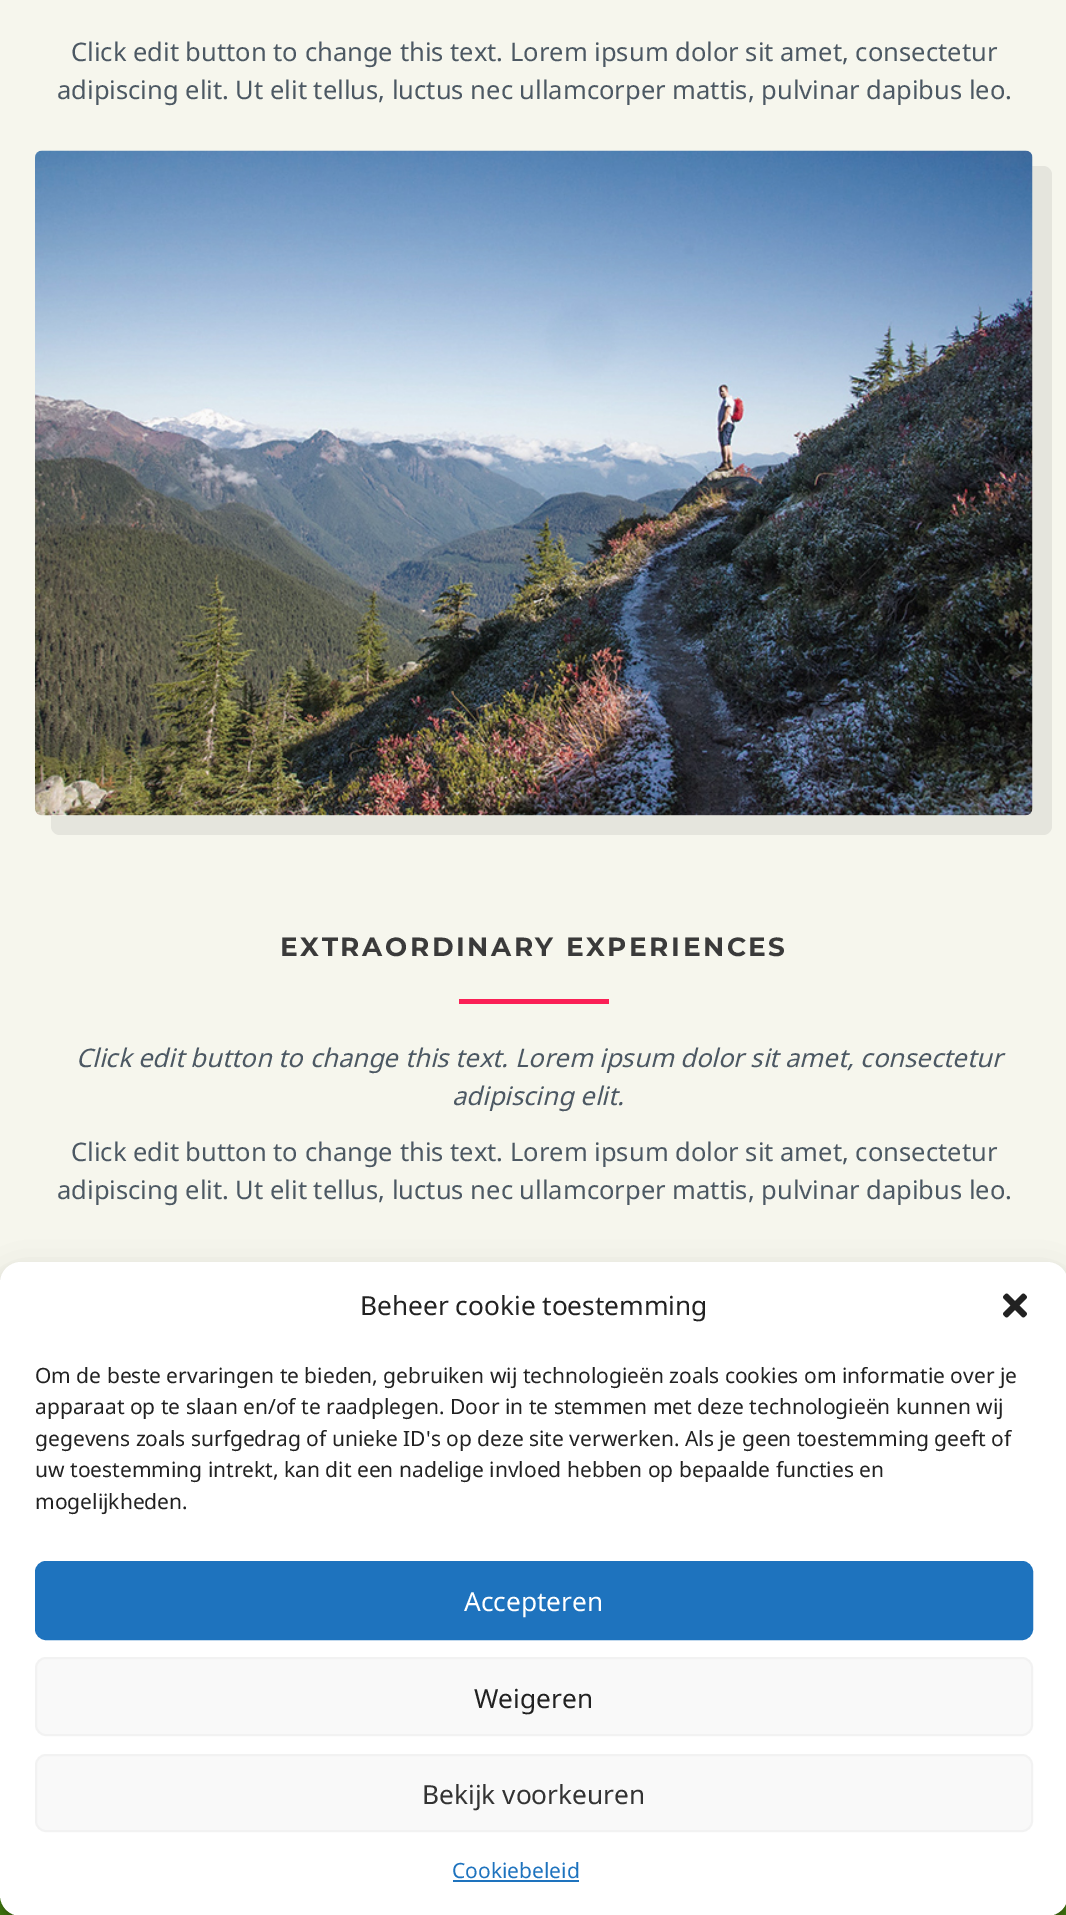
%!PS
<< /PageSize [1066 1915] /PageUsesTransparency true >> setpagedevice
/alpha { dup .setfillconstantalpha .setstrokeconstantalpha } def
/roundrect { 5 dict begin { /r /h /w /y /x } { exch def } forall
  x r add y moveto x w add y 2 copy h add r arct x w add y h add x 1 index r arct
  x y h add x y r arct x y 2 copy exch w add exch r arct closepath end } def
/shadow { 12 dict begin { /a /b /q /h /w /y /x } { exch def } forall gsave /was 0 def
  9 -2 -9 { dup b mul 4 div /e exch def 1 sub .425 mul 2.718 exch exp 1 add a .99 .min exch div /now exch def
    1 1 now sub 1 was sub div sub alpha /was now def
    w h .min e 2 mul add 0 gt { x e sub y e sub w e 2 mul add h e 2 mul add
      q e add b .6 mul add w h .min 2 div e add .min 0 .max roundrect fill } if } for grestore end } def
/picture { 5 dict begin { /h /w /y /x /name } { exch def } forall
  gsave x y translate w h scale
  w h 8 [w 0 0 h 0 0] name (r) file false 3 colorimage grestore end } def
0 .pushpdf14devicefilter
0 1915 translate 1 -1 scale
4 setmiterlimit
0.965 0.965 0.929 setrgbcolor
0 0 1066 1915 rectfill
/NotoSans-Regular [25.55 0 0 -25.55 0 0] selectfont
0.298 0.345 0.388 setrgbcolor
71 61 moveto (Click edit button to change this text. Lorem ipsum dolor sit amet, consectetur) show
57 99 moveto (adipiscing elit. Ut elit tellus, luctus nec ullamcorper mattis, pulvinar dapibus leo.) show
0.898 0.898 0.867 setrgbcolor
newpath 51 816 moveto 51 826 lineto 51 831 55 835 60 835 curveto 1043 835 lineto 1048 835 1052 831 1052 826 curveto 1052 175 lineto 1052 170 1048 166 1043 166 curveto 1032 166 lineto 1032 808 lineto 1032 812 1029 816 1026 816 curveto closepath fill
(img1.rgb) 35 150 998 666 picture
/Montserrat-Thin [26.25 0 0 -26.25 0 0] selectfont
0.227 setgray
280 956 moveto 2.6 0 (EXTRAORDINARY EXPERIENCES) ashow
0.984 0.125 0.337 setrgbcolor
459 999 150 5 rectfill
/NotoSans-Italic [25.55 0 0 -25.55 0 0] selectfont
0.298 0.345 0.388 setrgbcolor
76 1067 moveto (Click edit button to change this text. Lorem ipsum dolor sit amet, consectetur) show
452 1105 moveto (adipiscing elit.) show
/NotoSans-Regular [25.55 0 0 -25.55 0 0] selectfont
71 1161 moveto (Click edit button to change this text. Lorem ipsum dolor sit amet, consectetur) show
57 1199 moveto (adipiscing elit. Ut elit tellus, luctus nec ullamcorper mattis, pulvinar dapibus leo.) show
0.294 0.533 0.067 setrgbcolor
0 1895 1066 20 rectfill
0 setgray
0 1272 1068 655 21 5 0.23 shadow
0 1279 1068 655 21 17.5 0.19 shadow
1 setgray
0 1262 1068 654 21 roundrect fill
/NotoSans-Regular [26.25 0 0 -26.25 0 0] selectfont
0.133 setgray
360 1315 moveto (Beheer cookie toestemming) show
(img2.rgb) 1003 1293 24 25 picture
/NotoSans-Regular [21 0 0 -21 0 0] selectfont
35 1383 moveto (Om de beste ervaringen te bieden, gebruiken wij technologieën zoals cookies om informatie over je) show
35 1414 moveto (apparaat op te slaan en/of te raadplegen. Door in te stemmen met deze technologieën kunnen wij) show
35 1446 moveto (gegevens zoals surfgedrag of unieke ID's op deze site verwerken. Als je geen toestemming geeft of) show
35 1477 moveto (uw toestemming intrekt, kan dit een nadelige invloed hebben op bepaalde functies en) show
35 1509 moveto (mogelijkheden.) show
0.118 0.451 0.745 setrgbcolor
36 1562 996 77 10 roundrect gsave fill grestore
2 setlinewidth
stroke
/NotoSans-Regular [26.25 0 0 -26.25 0 0] selectfont
1 setgray
464 1611 moveto (Accepteren) show
0.976 setgray
36 1658 996 77 10 roundrect gsave fill grestore
0.949 setgray
stroke
0.133 setgray
474 1708 moveto (Weigeren) show
0.976 setgray
36 1755 996 76 10 roundrect gsave fill grestore
0.949 setgray
stroke
0.2 setgray
422 1804 moveto (Bekijk voorkeuren) show
/NotoSans-Regular [21 0 0 -21 0 0] selectfont
0.118 0.451 0.745 setrgbcolor
452 1878 moveto (Cookiebeleid) show
453 1880 126 2 rectfill
.poppdf14devicefilter showpage
